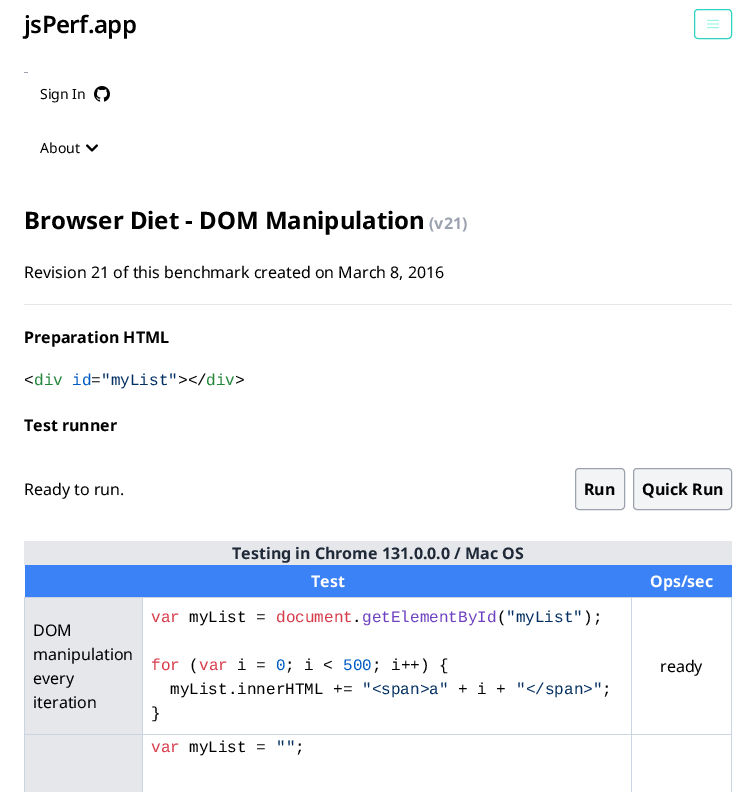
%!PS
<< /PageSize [756 792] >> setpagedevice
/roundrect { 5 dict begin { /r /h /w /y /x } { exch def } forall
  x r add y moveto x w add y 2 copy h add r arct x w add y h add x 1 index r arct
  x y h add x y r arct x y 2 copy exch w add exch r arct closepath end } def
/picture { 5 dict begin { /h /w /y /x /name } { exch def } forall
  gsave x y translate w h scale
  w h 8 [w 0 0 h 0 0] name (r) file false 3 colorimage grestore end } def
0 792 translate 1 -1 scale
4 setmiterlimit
1 setgray
0 0 756 792 rectfill
/NotoSans-SemiBold [24 0 0 -24 0 0] selectfont
0 setgray
24 33 moveto -0.5 0 (jsPerf.app) ashow
0.176 0.831 0.749 setrgbcolor
694.5 9.5 37 29 3.5 roundrect stroke
(img1.rgb) 707 19 12 10 picture
0.612 0.639 0.686 setrgbcolor
24 72 4 1 rectfill
/NotoSans-Regular [14 0 0 -14 0 0] selectfont
0 setgray
40 99 moveto (Sign In) show
(img2.rgb) 94 86 16 16 picture
40 153 moveto (About) show
(img3.rgb) 86 144 12 8 picture
/NotoSans-Bold [24 0 0 -24 0 0] selectfont
24 229 moveto (Browser Diet - DOM Manipulation) show
/NotoSans-Bold [16 0 0 -16 0 0] selectfont
0.612 0.639 0.686 setrgbcolor
429 229 moveto (\(v21\)) show
/NotoSans-Regular [16 0 0 -16 0 0] selectfont
0 setgray
24 278 moveto (Revision 21 of this benchmark created on March 8, 2016) show
0.898 0.906 0.922 setrgbcolor
24 304 708 1 rectfill
/NotoSans-Bold [16 0 0 -16 0 0] selectfont
0 setgray
24 343 moveto (Preparation HTML) show
/LiberationMono-Regular [16 0 0 -16 0 0] selectfont
24 385 moveto (<) show
0.133 0.525 0.227 setrgbcolor
34 385 moveto (div) show
0 0.361 0.773 setrgbcolor
72 385 moveto (id) show
0 setgray
91 385 moveto (=) show
0.012 0.184 0.384 setrgbcolor
101 385 moveto ("myList") show
0 setgray
178 385 moveto (></) show
0.133 0.525 0.227 setrgbcolor
206 385 moveto (div) show
0 setgray
235 385 moveto (>) show
/NotoSans-Bold [16 0 0 -16 0 0] selectfont
24 431 moveto (Test runner) show
/NotoSans-Regular [16 0 0 -16 0 0] selectfont
24 495 moveto (Ready to run.) show
0.953 0.957 0.965 setrgbcolor
575.5 468.5 49 41 3.5 roundrect gsave fill grestore
0.612 0.639 0.686 setrgbcolor
stroke
/NotoSans-Bold [16 0 0 -16 0 0] selectfont
0 setgray
584 495 moveto (Run) show
0.953 0.957 0.965 setrgbcolor
633.5 468.5 98 41 3.5 roundrect gsave fill grestore
0.612 0.639 0.686 setrgbcolor
stroke
0 setgray
642 495 moveto (Quick Run) show
0.898 0.906 0.922 setrgbcolor
24 541 708 24 rectfill
0.122 0.161 0.216 setrgbcolor
232 559 moveto (Testing in Chrome 131.0.0.0 / Mac OS) show
0.231 0.51 0.965 setrgbcolor
25 565 707 32 rectfill
1 setgray
311 587 moveto (Test) show
650 587 moveto (Ops/sec) show
0.898 0.906 0.922 setrgbcolor
25 598 117 136 rectfill
0.796 0.835 0.882 setrgbcolor
631 597 101 1 rectfill
631 734 101 1 rectfill
631 734 1 58 rectfill
142 734 490 1 rectfill
631 597 1 138 rectfill
142 597 490 1 rectfill
142 734 1 58 rectfill
24 734 119 1 rectfill
142 597 1 138 rectfill
24 597 119 1 rectfill
24 734 1 58 rectfill
24 597 1 138 rectfill
/NotoSans-Regular [16 0 0 -16 0 0] selectfont
0 setgray
33 636 moveto (DOM) show
33 660 moveto (manipulation) show
33 684 moveto (every) show
33 708 moveto (iteration) show
/LiberationMono-Regular [16 0 0 -16 0 0] selectfont
0.843 0.227 0.286 setrgbcolor
151 622 moveto (var) show
0 setgray
189 622 moveto (myList =) show
0.843 0.227 0.286 setrgbcolor
276 622 moveto (document) show
0 setgray
352 622 moveto (.) show
0.435 0.259 0.757 setrgbcolor
362 622 moveto (getElementById) show
0 setgray
497 622 moveto (\() show
0.012 0.184 0.384 setrgbcolor
506 622 moveto ("myList") show
0 setgray
583 622 moveto (\);) show
0.843 0.227 0.286 setrgbcolor
151 670 moveto (for) show
0 setgray
189 670 moveto (\() show
0.843 0.227 0.286 setrgbcolor
199 670 moveto (var) show
0 setgray
237 670 moveto (i =) show
0 0.361 0.773 setrgbcolor
276 670 moveto (0) show
0 setgray
285 670 moveto (; i <) show
0 0.361 0.773 setrgbcolor
343 670 moveto (500) show
0 setgray
372 670 moveto (; i++\) {) show
170 694 moveto (myList.innerHTML +=) show
0.012 0.184 0.384 setrgbcolor
362 694 moveto ("<span>a") show
0 setgray
458 694 moveto (+ i +) show
0.012 0.184 0.384 setrgbcolor
516 694 moveto ("</span>") show
0 setgray
602 694 moveto (;) show
151 718 moveto (}) show
0.796 0.835 0.882 setrgbcolor
731 734 1 58 rectfill
731 597 1 138 rectfill
/NotoSans-Regular [16 0 0 -16 0 0] selectfont
0 setgray
660 672 moveto (ready) show
0.898 0.906 0.922 setrgbcolor
25 735 117 57 rectfill
/LiberationMono-Regular [16 0 0 -16 0 0] selectfont
0.843 0.227 0.286 setrgbcolor
151 752 moveto (var) show
0 setgray
189 752 moveto (myList =) show
0.012 0.184 0.384 setrgbcolor
276 752 moveto ("") show
0 setgray
295 752 moveto (;) show
showpage
